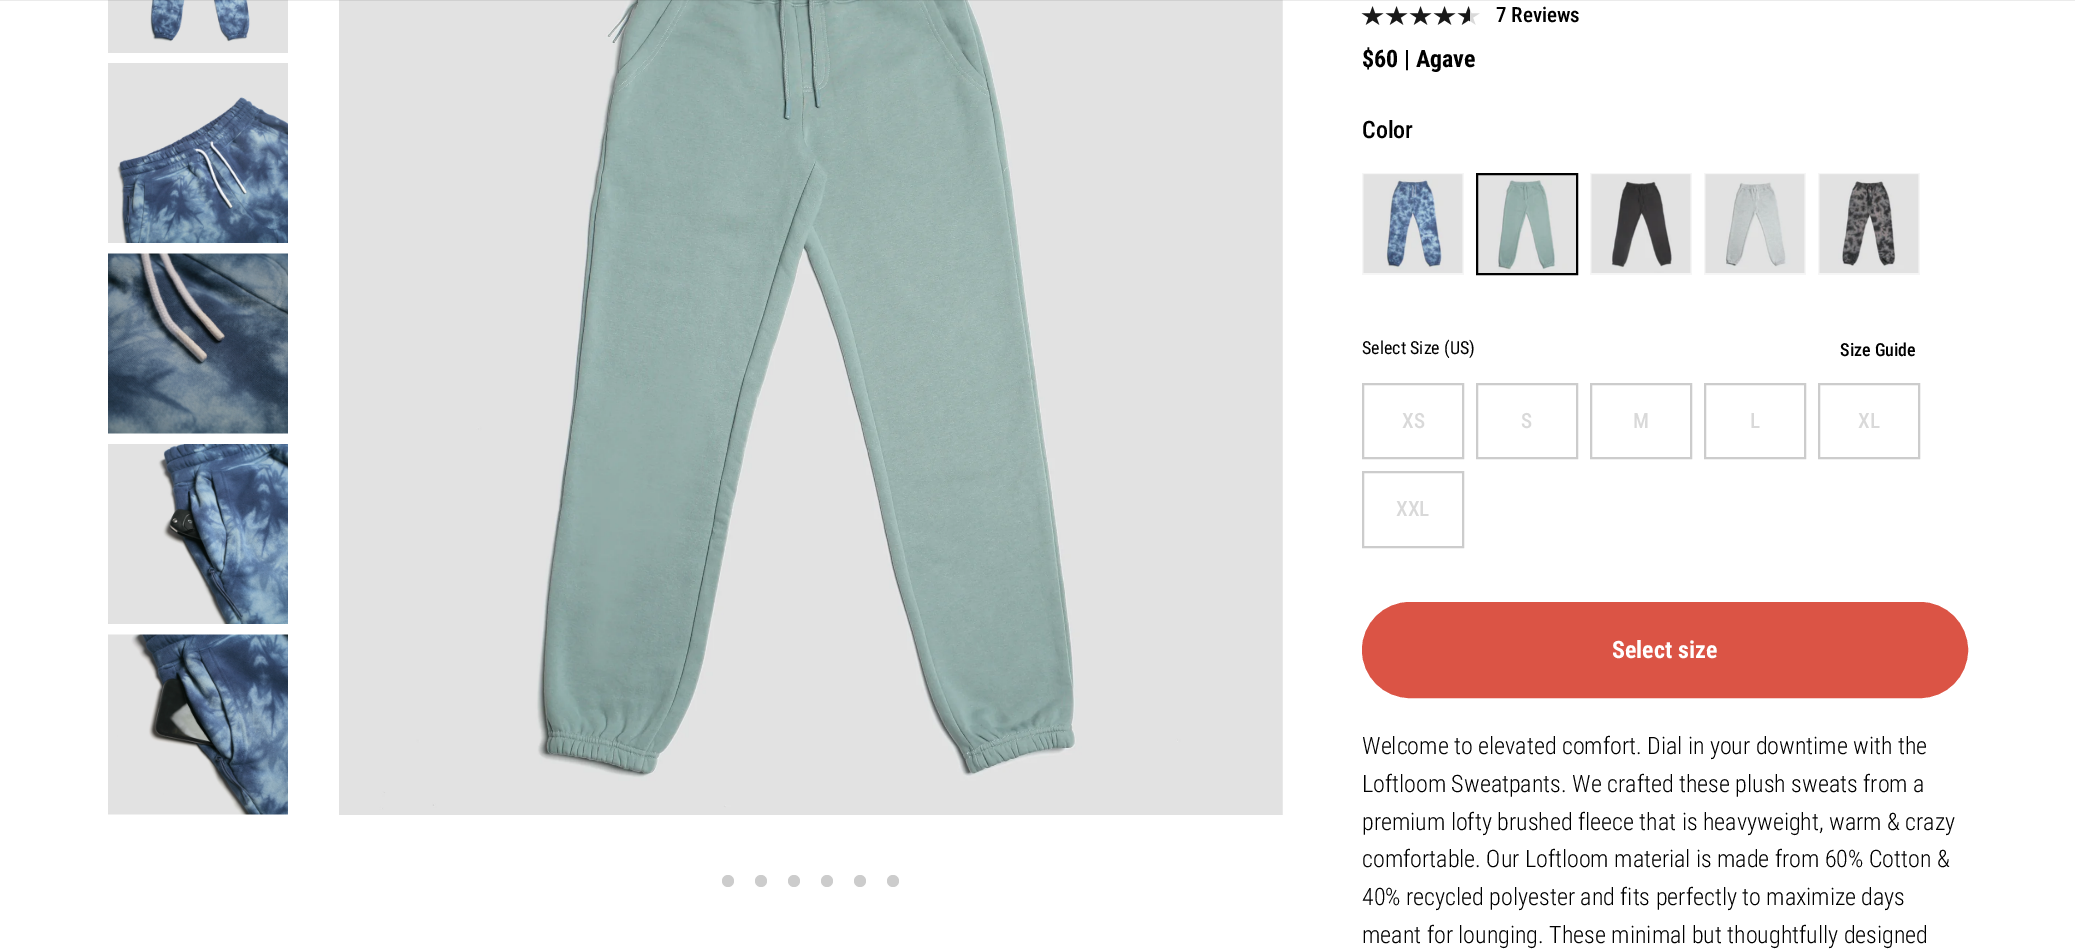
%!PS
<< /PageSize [2075 950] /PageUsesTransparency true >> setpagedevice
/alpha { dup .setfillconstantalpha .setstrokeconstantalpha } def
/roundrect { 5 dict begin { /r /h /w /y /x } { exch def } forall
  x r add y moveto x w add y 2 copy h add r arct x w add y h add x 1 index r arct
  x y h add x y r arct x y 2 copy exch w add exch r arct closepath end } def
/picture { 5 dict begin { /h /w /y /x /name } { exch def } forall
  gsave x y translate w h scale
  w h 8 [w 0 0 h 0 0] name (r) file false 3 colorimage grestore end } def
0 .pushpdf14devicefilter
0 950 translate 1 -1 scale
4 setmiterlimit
1 setgray
0 0 2075 950 rectfill
(img1.rgb) 108 0 180 53 picture
(img6.rgb) 339 0 944 815 picture
0.08 alpha
0 setgray
0 0 2075 1 rectfill
1 alpha
(img2.rgb) 108 63 180 180 picture
(img3.rgb) 108 253 180 181 picture
(img4.rgb) 108 444 180 180 picture
(img5.rgb) 108 634 180 181 picture
0.8 setgray
newpath 728 881 6 0 360 arc closepath fill
newpath 761 881 6 0 360 arc closepath fill
newpath 794 881 6 0 360 arc closepath fill
newpath 827 881 6 0 360 arc closepath fill
newpath 860 881 6 0 360 arc closepath fill
newpath 893 881 6 0 360 arc closepath fill
(img9.rgb) 1362 6 22 19 picture
(img7.rgb) 1361 6 23 19 picture
(img9.rgb) 1386 6 22 19 picture
(img7.rgb) 1385 6 23 19 picture
(img9.rgb) 1410 6 22 19 picture
(img7.rgb) 1409 6 23 19 picture
(img9.rgb) 1434 6 22 19 picture
(img7.rgb) 1433 6 23 19 picture
(img9.rgb) 1458 6 22 19 picture
(img8.rgb) 1457 6 13 19 picture
/RobotoCondensed-Medium [21 0 0 -21 0 0] selectfont
0 setgray
1496 22 moveto (7 Reviews) show
/RobotoCondensed-Bold [24 0 0 -24 0 0] selectfont
1362 67 moveto ($60 | Agave) show
/RobotoCondensed-Medium [24 0 0 -24 0 0] selectfont
1362 138 moveto (Color) show
0.965 setgray
1362 173 102 102 rectfill
(img10.rgb) 1363 174 100 99 picture
(img11.rgb) 1478 175 98 98 picture
0 setgray
2 setlinewidth
1477 174 100 100 rectstroke
0.965 setgray
1590 173 102 102 rectfill
(img12.rgb) 1591 174 100 99 picture
1704 173 102 102 rectfill
(img13.rgb) 1705 174 100 99 picture
1818 173 102 102 rectfill
(img14.rgb) 1819 174 100 99 picture
/RobotoCondensed-Regular [18 0 0 -18 0 0] selectfont
0 setgray
1362 354 moveto (Select Size \(US\)) show
/RobotoCondensed-Medium [18 0 0 -18 0 0] selectfont
1840 356 moveto (Size Guide) show
0.8 setgray
1363 384 100 74 rectstroke
/RobotoCondensed-Medium [21 0 0 -21 0 0] selectfont
0.851 setgray
1402 428 moveto (XS) show
0.8 setgray
1477 384 100 74 rectstroke
0.851 setgray
1521 428 moveto (S) show
0.8 setgray
1591 384 100 74 rectstroke
0.851 setgray
1633 428 moveto (M) show
0.8 setgray
1705 384 100 74 rectstroke
0.851 setgray
1750 428 moveto (L) show
0.8 setgray
1819 384 100 74 rectstroke
0.851 setgray
1858 428 moveto (XL) show
0.8 setgray
1363 472 100 75 rectstroke
0.851 setgray
1396 516 moveto (XXL) show
0.859 0.329 0.271 setrgbcolor
1363 603 604 94 47 roundrect gsave fill grestore
stroke
/RobotoCondensed-Bold [24 0 0 -24 0 0] selectfont
1 setgray
1612 658 moveto (Select size) show
/RobotoCondensed-Light [24 0 0 -24 0 0] selectfont
0 setgray
1362 754 moveto (Welcome to elevated comfort. Dial in your downtime with the) show
1362 792 moveto (Loftloom Sweatpants. We crafted these plush sweats from a) show
1362 830 moveto (premium lofty brushed fleece that is heavyweight, warm & crazy) show
1362 867 moveto (comfortable. Our Loftloom material is made from 60% Cotton &) show
1362 905 moveto (40% recycled polyester and fits perfectly to maximize days) show
1362 943 moveto (meant for lounging. These minimal but thoughtfully designed) show
.poppdf14devicefilter showpage
